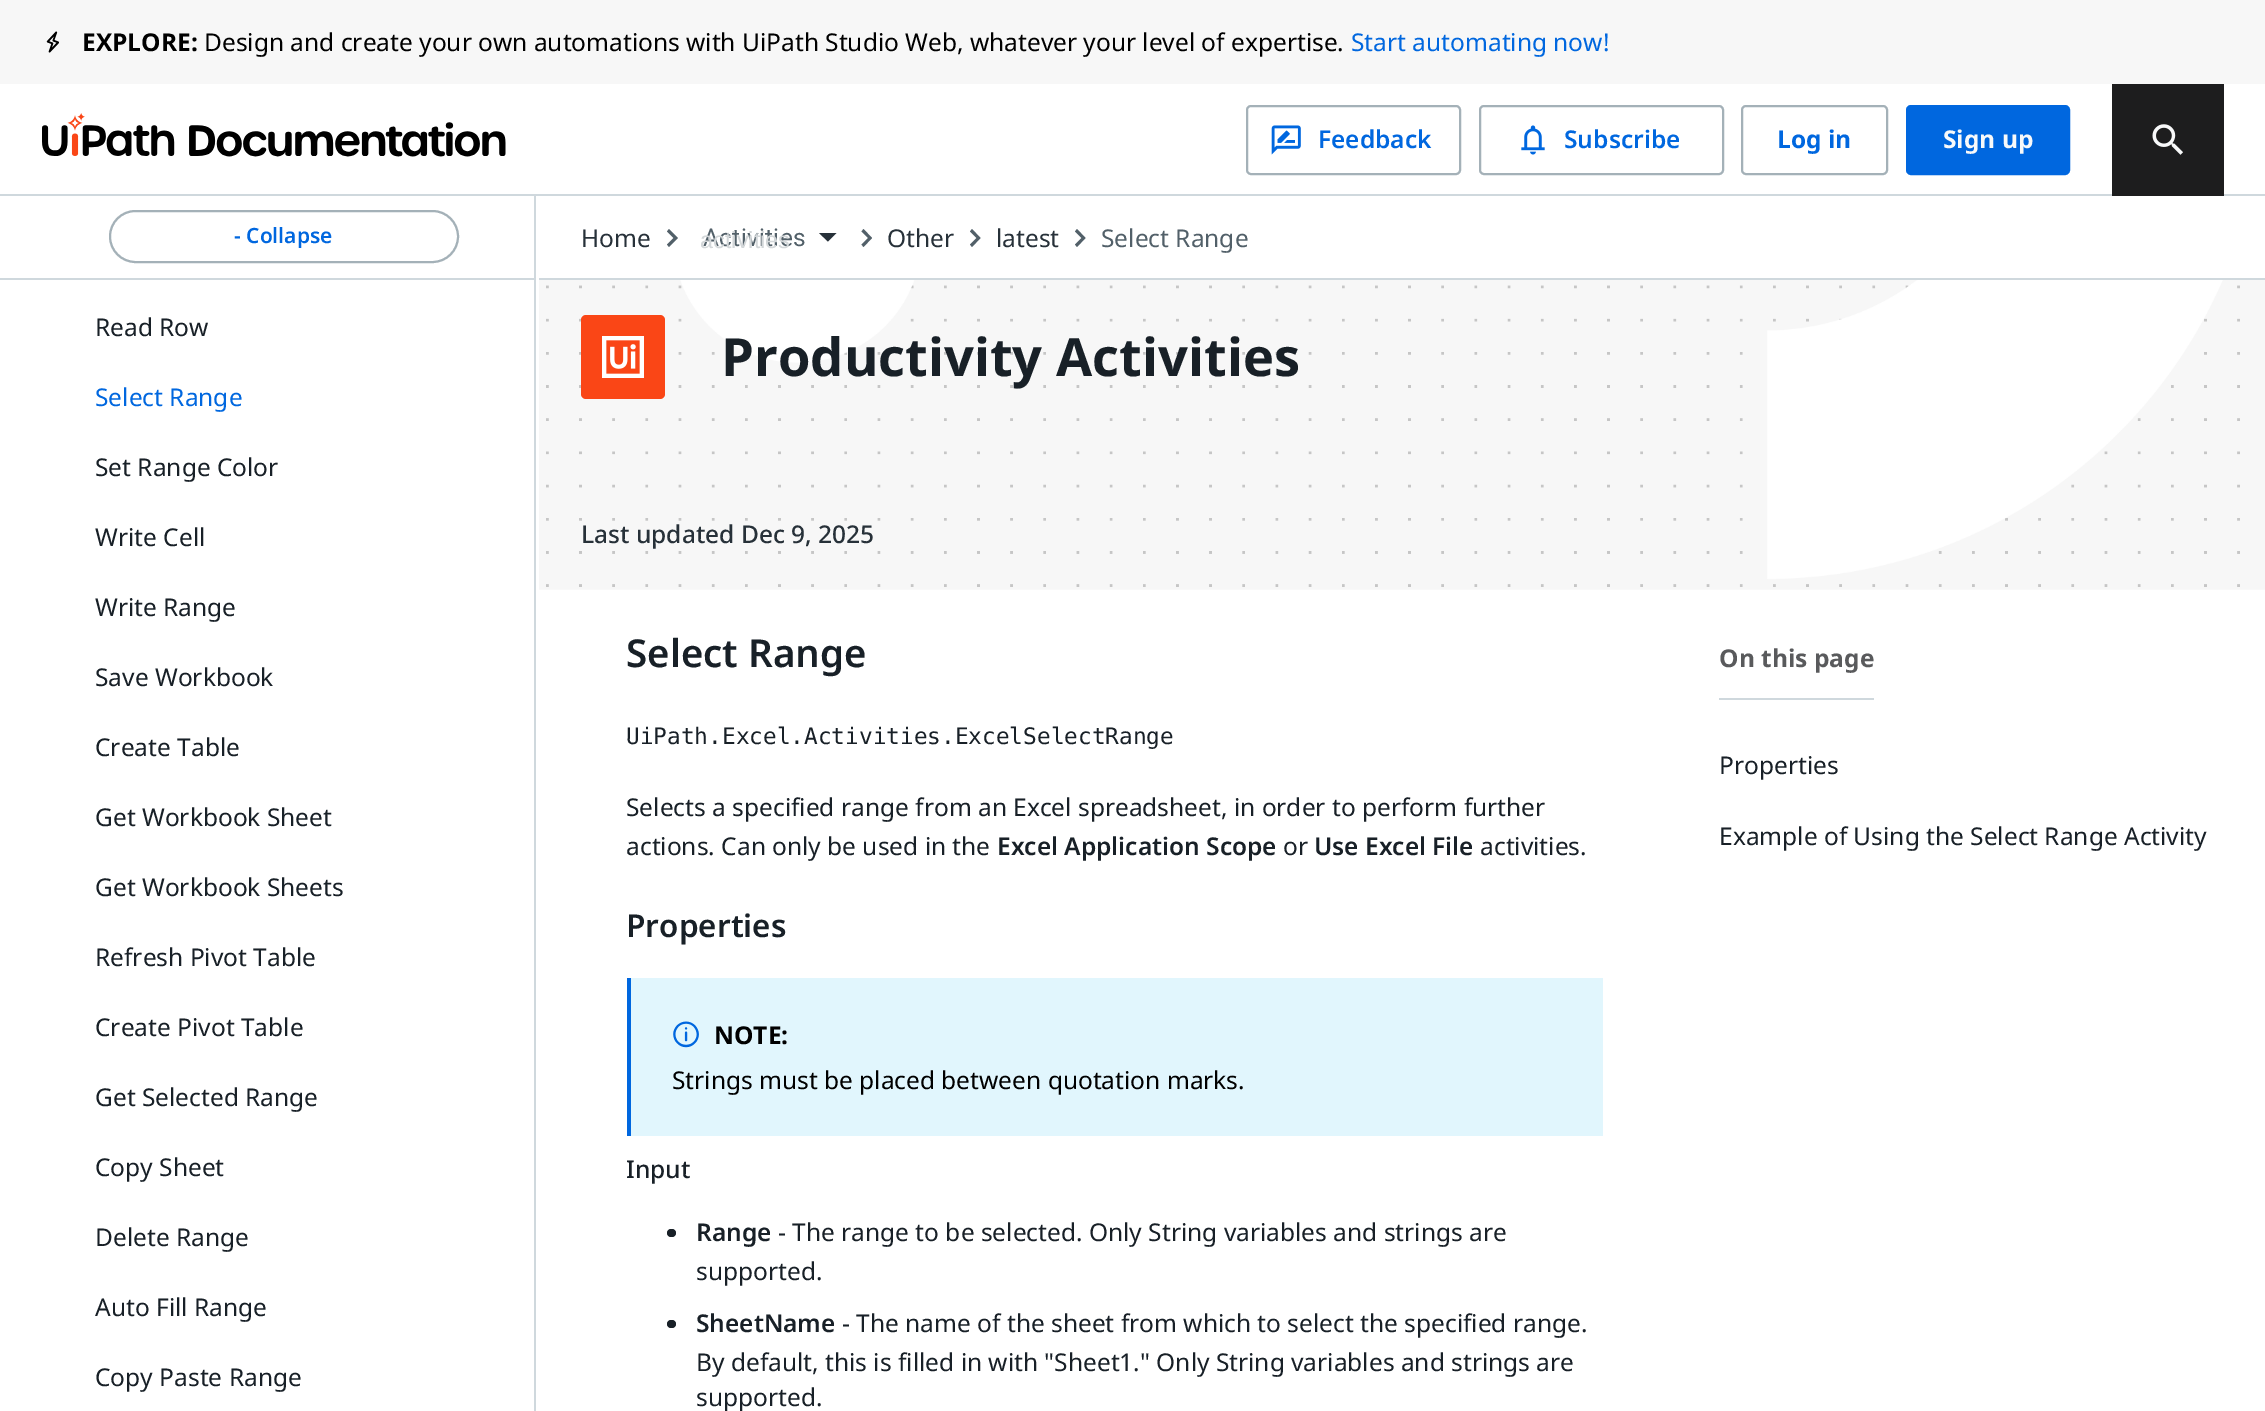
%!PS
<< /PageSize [2265 1411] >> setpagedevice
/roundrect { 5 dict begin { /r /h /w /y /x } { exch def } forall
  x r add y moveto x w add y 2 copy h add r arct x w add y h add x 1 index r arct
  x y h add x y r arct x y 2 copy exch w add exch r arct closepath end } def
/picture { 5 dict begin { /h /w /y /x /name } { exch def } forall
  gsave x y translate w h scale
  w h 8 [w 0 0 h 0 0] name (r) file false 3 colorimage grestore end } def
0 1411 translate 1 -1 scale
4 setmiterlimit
1 setgray
0 0 2265 1411 rectfill
0.969 setgray
0 0 2265 84 rectfill
(img1.rgb) 46 31 13 22 picture
/NotoSans-Bold [24.5 0 0 -24.5 0 0] selectfont
0 setgray
82 51 moveto (EXPLORE:) show
/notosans-Regular [24.5 0 0 -24.5 0 0] selectfont
204 51 moveto (Design and create your own automations with UiPath Studio Web, whatever your level of expertise.) show
0 0.404 0.875 setrgbcolor
1351 51 moveto (Start automating now!) show
0.812 0.847 0.867 setrgbcolor
0 194 2265 2 rectfill
(img2.rgb) 42 113 464 44 picture
0.643 0.694 0.722 setrgbcolor
2 setlinewidth
1247 106 213 68 4 roundrect stroke
(img3.rgb) 1271 125 30 30 picture
/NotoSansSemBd-SemiBold [24.5 0 0 -24.5 0 0] selectfont
0 0.404 0.875 setrgbcolor
1318 148 moveto (Feedback) show
0.643 0.694 0.722 setrgbcolor
1480 106 243 68 4 roundrect stroke
(img4.rgb) 1521 125 24 30 picture
0 0.404 0.875 setrgbcolor
1564 148 moveto (Subscribe) show
0.643 0.694 0.722 setrgbcolor
1742 106 145 68 4 roundrect stroke
/NotoSans-Bold [24.5 0 0 -24.5 0 0] selectfont
0 0.404 0.875 setrgbcolor
1777 148 moveto (Log in) show
1907 106 162 68 4 roundrect gsave fill grestore
stroke
0.973 0.976 0.98 setrgbcolor
1943 148 moveto (Sign up) show
0.114 0.114 0.118 setrgbcolor
2112 84 112 112 rectfill
(img5.rgb) 2152 124 31 31 picture
0.812 0.847 0.867 setrgbcolor
534 196 2 1215 rectfill
0 278 536 2 rectfill
0.643 0.694 0.722 setrgbcolor
110 211 348 51 25.5 roundrect stroke
/NotoSansSemBd-SemiBold [21 0 0 -21 0 0] selectfont
0 0.404 0.875 setrgbcolor
234 243 moveto (- Collapse) show
/notosans-Regular [24.5 0 0 -24.5 0 0] selectfont
0.094 0.125 0.153 setrgbcolor
95 336 moveto (Read Row) show
0 0.404 0.875 setrgbcolor
95 406 moveto (Select Range) show
0.094 0.125 0.153 setrgbcolor
95 476 moveto (Set Range Color) show
95 546 moveto (Write Cell) show
95 616 moveto (Write Range) show
95 686 moveto (Save Workbook) show
95 756 moveto (Create Table) show
95 826 moveto (Get Workbook Sheet) show
95 896 moveto (Get Workbook Sheets) show
95 966 moveto (Refresh Pivot Table) show
95 1036 moveto (Create Pivot Table) show
95 1106 moveto (Get Selected Range) show
95 1176 moveto (Copy Sheet) show
95 1246 moveto (Delete Range) show
95 1316 moveto (Auto Fill Range) show
95 1386 moveto (Copy Paste Range) show
0.812 0.847 0.867 setrgbcolor
539 278 1726 2 rectfill
0.153 0.192 0.224 setrgbcolor
581 247 moveto (Home) show
0.322 0.376 0.412 setrgbcolor
newpath 669 229 moveto 667 231.5 lineto 673.5 238 lineto 667 244.5 lineto 669 247 lineto 678 238 lineto closepath fill
/Roboto-Regular [24.5 0 0 -24.5 0 0] selectfont
703 246 moveto 0.25 0 (Activities) ashow
/LiberationSans-Regular [23.5 0 0 -23.5 0 0] selectfont
0.827 0.843 0.851 setrgbcolor
700 248 moveto (activities) show
0.153 0.192 0.224 setrgbcolor
newpath 819 233 moveto 828 241.5 lineto 836.5 233 lineto closepath fill
0.322 0.376 0.412 setrgbcolor
newpath 863.5 229 moveto 861.5 231.5 lineto 868 238 lineto 861.5 244.5 lineto 863.5 247 lineto 872 238 lineto closepath fill
/notosans-Regular [24.5 0 0 -24.5 0 0] selectfont
0.153 0.192 0.224 setrgbcolor
887 247 moveto (Other) show
0.322 0.376 0.412 setrgbcolor
newpath 972 229 moveto 970 231.5 lineto 976.5 238 lineto 970 244.5 lineto 972 247 lineto 980.5 238 lineto closepath fill
0.153 0.192 0.224 setrgbcolor
996 247 moveto (latest) show
0.322 0.376 0.412 setrgbcolor
newpath 1077 229 moveto 1075 231.5 lineto 1081.5 238 lineto 1075 244.5 lineto 1077 247 lineto 1085.5 238 lineto closepath fill
1101 247 moveto (Select Range) show
(img6.rgb) 539 280 1726 310 picture
0.98 0.275 0.086 setrgbcolor
581 315 84 84 5 roundrect fill
(img7.rgb) 602 336 42 42 picture
/NotoSans-Bold [52.5 0 0 -52.5 0 0] selectfont
0.094 0.125 0.153 setrgbcolor
721 376 moveto (Productivity Activities) show
/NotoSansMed-Medium [24.5 0 0 -24.5 0 0] selectfont
0.153 0.192 0.224 setrgbcolor
581 543 moveto (Last updated Dec 9, 2025) show
/NotoSansSemBd-SemiBold [38.5 0 0 -38.5 0 0] selectfont
0.094 0.125 0.153 setrgbcolor
626 667 moveto (Select Range) show
/DejaVuSansMono-Regular [22.75 0 0 -22.75 0 0] selectfont
626 744 moveto (UiPath.Excel.Activities.ExcelSelectRange) show
/notosans-Regular [24.5 0 0 -24.5 0 0] selectfont
626 816 moveto (Selects a specified range from an Excel spreadsheet, in order to perform further) show
626 855 moveto (actions. Can only be used in the) show
/NotoSansSemBd-SemiBold [24.5 0 0 -24.5 0 0] selectfont
997 855 moveto (Excel Application Scope) show
/notosans-Regular [24.5 0 0 -24.5 0 0] selectfont
1283 855 moveto (or) show
/NotoSansSemBd-SemiBold [24.5 0 0 -24.5 0 0] selectfont
1314 855 moveto (Use Excel File) show
/notosans-Regular [24.5 0 0 -24.5 0 0] selectfont
1480 855 moveto (activities.) show
/NotoSansSemBd-SemiBold [31.5 0 0 -31.5 0 0] selectfont
626 937 moveto (Properties) show
0.882 0.965 0.992 setrgbcolor
631 978 972 158 rectfill
0 0.404 0.875 setrgbcolor
627 978 4 158 rectfill
(img8.rgb) 673 1021 26 27 picture
/NotoSans-Bold [24.5 0 0 -24.5 0 0] selectfont
0 setgray
714 1044 moveto (NOTE:) show
/notosans-Regular [24.5 0 0 -24.5 0 0] selectfont
672 1089 moveto (Strings must be placed between quotation marks.) show
/NotoSansMed-Medium [24.5 0 0 -24.5 0 0] selectfont
0.094 0.125 0.153 setrgbcolor
626 1178 moveto (Input) show
667 1229 9 8 4 roundrect fill
/NotoSansSemBd-SemiBold [24.5 0 0 -24.5 0 0] selectfont
696 1241 moveto (Range) show
/notosans-Regular [24.5 0 0 -24.5 0 0] selectfont
778 1241 moveto (- The range to be selected. Only String variables and strings are) show
696 1280 moveto (supported.) show
667 1320 9 8 4 roundrect fill
/NotoSansSemBd-SemiBold [24.5 0 0 -24.5 0 0] selectfont
696 1332 moveto (SheetName) show
/notosans-Regular [24.5 0 0 -24.5 0 0] selectfont
842 1332 moveto (- The name of the sheet from which to select the specified range.) show
696 1371 moveto (By default, this is filled in with "Sheet1." Only String variables and strings are) show
696 1406 moveto (supported.) show
0.812 0.847 0.867 setrgbcolor
1719 698 155 2 rectfill
/NotoSans-Bold [24.5 0 0 -24.5 0 0] selectfont
0.349 0.353 0.361 setrgbcolor
1719 667 moveto (On this page) show
/notosans-Regular [24.5 0 0 -24.5 0 0] selectfont
0.094 0.125 0.153 setrgbcolor
1719 774 moveto (Properties) show
1719 845 moveto (Example of Using the Select Range Activity) show
showpage
